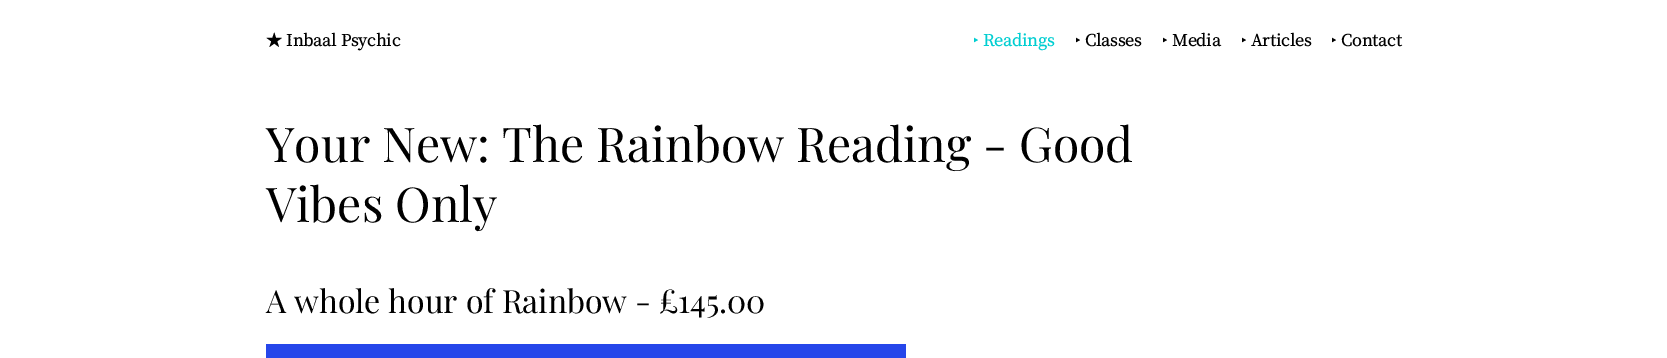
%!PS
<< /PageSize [1667 358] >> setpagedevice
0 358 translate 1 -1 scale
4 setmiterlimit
1 setgray
0 0 1667 358 rectfill
/NotoSerifSC-Bold [16 0 0 -16 0 0] selectfont
0 setgray
266 46 moveto (★ Inbaal Psychic) show
/NotoSans-Regular [16 0 0 -16 0 0] selectfont
0 0.808 0.82 setrgbcolor
973 46 moveto (‣) show
/NotoSerifSC-Bold [16 0 0 -16 0 0] selectfont
983 46 moveto (Readings) show
/NotoSans-Regular [16 0 0 -16 0 0] selectfont
0 setgray
1075 46 moveto (‣) show
/NotoSerifSC-Bold [16 0 0 -16 0 0] selectfont
1085 46 moveto (Classes) show
/NotoSans-Regular [16 0 0 -16 0 0] selectfont
1162 46 moveto (‣) show
/NotoSerifSC-Bold [16 0 0 -16 0 0] selectfont
1172 46 moveto (Media) show
/NotoSans-Regular [16 0 0 -16 0 0] selectfont
1241 46 moveto (‣) show
/NotoSerifSC-Bold [16 0 0 -16 0 0] selectfont
1251 46 moveto (Articles) show
/NotoSans-Regular [16 0 0 -16 0 0] selectfont
1331 46 moveto (‣) show
/NotoSerifSC-Bold [16 0 0 -16 0 0] selectfont
1341 46 moveto (Contact) show
/PlayfairDisplay-Regular [48 0 0 -48 0 0] selectfont
266 162 moveto (Your New: The Rainbow Reading - Good) show
266 222 moveto (Vibes Only) show
/PlayfairDisplay-Regular [32 0 0 -32 0 0] selectfont
266 313 moveto (A whole hour of Rainbow - £145.00) show
0.149 0.275 0.918 setrgbcolor
266 344 640 14 rectfill
showpage
